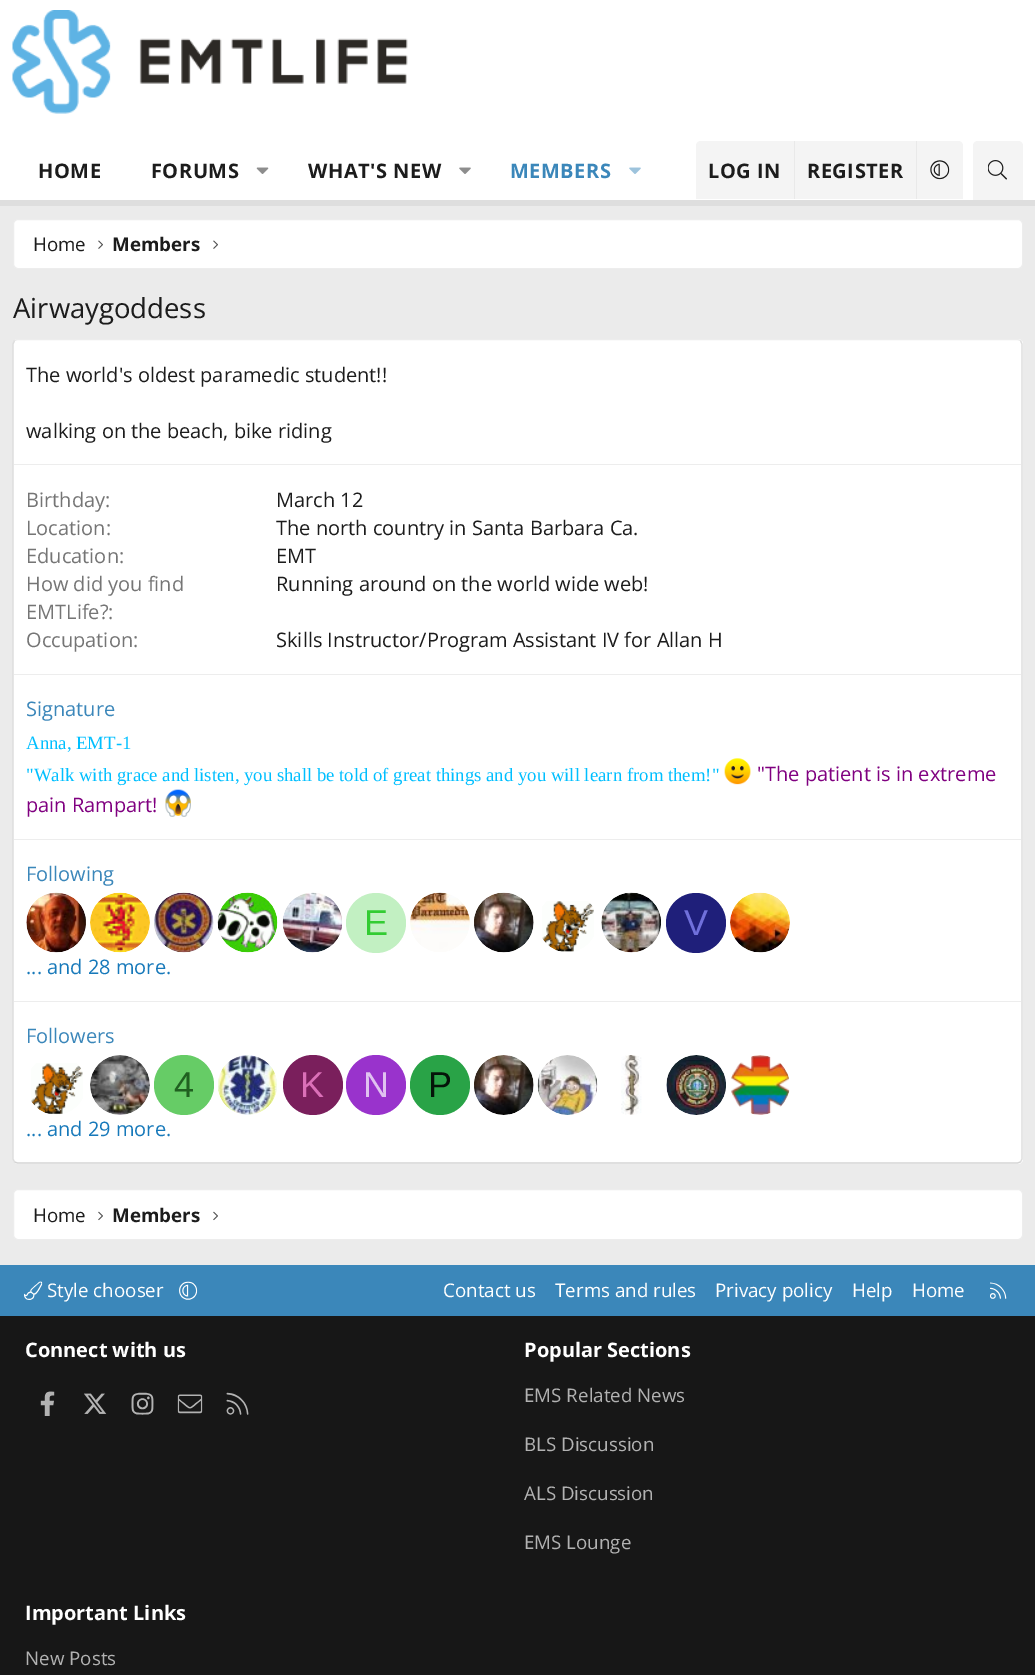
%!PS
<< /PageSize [1035 1675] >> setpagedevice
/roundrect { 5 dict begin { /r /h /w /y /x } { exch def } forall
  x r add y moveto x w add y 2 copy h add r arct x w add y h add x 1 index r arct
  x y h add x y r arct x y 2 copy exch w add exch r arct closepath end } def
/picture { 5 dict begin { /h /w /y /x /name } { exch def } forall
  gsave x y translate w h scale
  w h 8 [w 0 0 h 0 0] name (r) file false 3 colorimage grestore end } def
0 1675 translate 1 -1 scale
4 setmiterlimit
0.922 setgray
0 0 1035 1675 rectfill
1 setgray
0 0 1035 200 rectfill
(img1.rgb) 12 10 396 104 picture
0.871 setgray
0 200 1035 6 rectfill
/OpenSans-Bold [20 0 0 -20 0 0] selectfont
0.11 setgray
38 178 moveto 0.5 0 (HOME) ashow
151 178 moveto 0.5 0 (FORUMS) ashow
(img2.rgb) 256 167 13 7 picture
308 178 moveto 0.5 0 (WHAT'S NEW) ashow
(img3.rgb) 459 167 12 7 picture
0.231 0.529 0.729 setrgbcolor
510 178 moveto 0.5 0 (MEMBERS) ashow
(img4.rgb) 629 167 12 7 picture
0.957 setgray
newpath 701 141 moveto 958 141 lineto 961 141 963 143 963 146 curveto 963 199 lineto 696 199 lineto 696 146 lineto 696 143 698 141 701 141 curveto closepath fill
0.11 setgray
708 178 moveto 0.5 0 (LOG IN) ashow
0.914 setgray
794 141 1 58 rectfill
0.11 setgray
807 178 moveto 0.5 0 (REGISTER) ashow
0.914 setgray
916 141 1 58 rectfill
(img5.rgb) 930 160 20 20 picture
0.957 setgray
newpath 978 141 moveto 1018 141 lineto 1021 141 1023 143 1023 146 curveto 1023 200 lineto 973 200 lineto 973 146 lineto 973 143 975 141 978 141 curveto closepath fill
(img6.rgb) 988 160 19 20 picture
1 setgray
13.5 219.5 1009 49 4.5 roundrect gsave fill grestore
0.929 setgray
stroke
/OpenSans-Regular [18.75 0 0 -18.75 0 0] selectfont
0.11 setgray
33 251 moveto (Home) show
(img7.rgb) 98 240 5 9 picture
/OpenSans-Bold [18.75 0 0 -18.75 0 0] selectfont
112 251 moveto (Members) show
(img7.rgb) 213 240 5 9 picture
/OpenSans-Regular [27.5 0 0 -27.5 0 0] selectfont
13 318 moveto (Airwaygoddess) show
1 setgray
13 339 1010 825 5 roundrect fill
0.929 setgray
1.2 setlinewidth
newpath 14.5 340.5 moveto 17.5 339.5 lineto 1017.5 339.5 lineto 1020.5 340.5 lineto stroke
0.871 setgray
newpath 1020.5 340.5 moveto 1022 344 lineto 1022 1159 lineto 1020.5 1162 lineto stroke
0.831 setgray
newpath 1020.5 1162 moveto 1017.5 1163 lineto 17.5 1163 lineto 14.5 1162 lineto stroke
0.871 setgray
newpath 14.5 1162 moveto 13 1159 lineto 13 344 lineto 14.5 340.5 lineto stroke
/OpenSans-Regular [20 0 0 -20 0 0] selectfont
0.11 setgray
26 382 moveto (The world's oldest paramedic student!!) show
26 438 moveto (walking on the beach, bike riding) show
0.929 setgray
14 464 1007 1 rectfill
0.459 setgray
26 507 moveto (Birthday:) show
0.11 setgray
276 507 moveto (March 12) show
0.459 setgray
26 535 moveto (Location:) show
0.11 setgray
276 535 moveto (The north country in Santa Barbara Ca.) show
0.459 setgray
26 563 moveto (Education:) show
0.11 setgray
276 563 moveto (EMT) show
0.459 setgray
26 591 moveto (How did you find) show
26 619 moveto (EMTLife?:) show
0.11 setgray
276 591 moveto (Running around on the world wide web!) show
0.459 setgray
26 647 moveto (Occupation:) show
0.11 setgray
276 647 moveto (Skills Instructor/Program Assistant IV for Allan H) show
0.929 setgray
14 674 1007 1 rectfill
0.231 0.529 0.729 setrgbcolor
26 716 moveto (Signature) show
/LiberationSerif-Regular [18.75 0 0 -18.75 0 0] selectfont
0 0.749 1 setrgbcolor
26 749 moveto (Anna, EMT-1) show
26 781 moveto ("Walk with grace and listen, you shall be told of great things and you will learn from them!") show
(img8.rgb) 724 758 27 27 picture
/OpenSans-Regular [20 0 0 -20 0 0] selectfont
0.502 0 0.502 setrgbcolor
757 781 moveto ("The patient is in extreme) show
26 812 moveto (pain Rampart!) show
(img9.rgb) 165 789 26 28 picture
0.929 setgray
14 839 1007 1 rectfill
0.231 0.529 0.729 setrgbcolor
26 881 moveto (Following) show
(img10.rgb) 26 892 60 61 picture
(img11.rgb) 90 892 60 61 picture
(img12.rgb) 154 892 60 61 picture
(img13.rgb) 217 892 61 61 picture
(img14.rgb) 282 892 60 61 picture
0.761 0.941 0.761 setrgbcolor
newpath 376 923 30 0 360 arc closepath fill
/LiberationSans-Regular [36 0 0 -36 0 0] selectfont
0.2 0.8 0.2 setrgbcolor
364 935 moveto (E) show
(img15.rgb) 410 892 60 60 picture
(img16.rgb) 474 892 60 61 picture
(img17.rgb) 542 901 52 51 picture
(img18.rgb) 601 892 60 61 picture
0.122 0.122 0.478 setrgbcolor
newpath 696 923 30 0 360 arc closepath fill
0.439 0.439 0.859 setrgbcolor
684 935 moveto (V) show
(img19.rgb) 730 892 60 61 picture
/OpenSans-Regular [20 0 0 -20 0 0] selectfont
0.09 0.475 0.729 setrgbcolor
26 974 moveto (... and 28 more.) show
0.929 setgray
14 1001 1007 1 rectfill
0.231 0.529 0.729 setrgbcolor
26 1043 moveto (Followers) show
(img20.rgb) 31 1063 52 52 picture
(img21.rgb) 90 1055 60 60 picture
0.4 0.8 0.4 setrgbcolor
newpath 184 1085 30 0 360 arc closepath fill
/LiberationSans-Regular [36 0 0 -36 0 0] selectfont
0.125 0.376 0.125 setrgbcolor
174 1097 moveto (4) show
(img22.rgb) 218 1055 59 60 picture
0.478 0.122 0.361 setrgbcolor
newpath 313 1085 30 0 360 arc closepath fill
0.859 0.439 0.722 setrgbcolor
300 1097 moveto (K) show
0.6 0.2 0.8 setrgbcolor
newpath 376 1085 30 0 360 arc closepath fill
0.878 0.761 0.941 setrgbcolor
363 1097 moveto (N) show
0.161 0.639 0.278 setrgbcolor
newpath 440 1085 30 0 360 arc closepath fill
0.02 0.078 0.035 setrgbcolor
428 1097 moveto (P) show
(img23.rgb) 474 1055 60 60 picture
(img24.rgb) 537 1055 61 60 picture
(img25.rgb) 621 1055 21 60 picture
(img26.rgb) 666 1055 60 60 picture
(img27.rgb) 731 1055 59 60 picture
/OpenSans-Regular [20 0 0 -20 0 0] selectfont
0.09 0.475 0.729 setrgbcolor
26 1136 moveto (... and 29 more.) show
1 setgray
13.5 1189.5 1009 50 4.5 roundrect gsave fill grestore
0.929 setgray
1 setlinewidth
stroke
/OpenSans-Regular [18.75 0 0 -18.75 0 0] selectfont
0.11 setgray
33 1222 moveto (Home) show
(img28.rgb) 98 1211 5 10 picture
/OpenSans-Bold [18.75 0 0 -18.75 0 0] selectfont
112 1222 moveto (Members) show
(img28.rgb) 213 1211 5 10 picture
0.231 0.529 0.729 setrgbcolor
0 1265 1035 51 rectfill
(img29.rgb) 24 1281 19 19 picture
/OpenSans-Regular [18.75 0 0 -18.75 0 0] selectfont
1 setgray
47 1297 moveto (Style chooser) show
(img30.rgb) 179 1281 19 19 picture
443 1297 moveto (Contact us) show
555 1297 moveto (Terms and rules) show
715 1297 moveto (Privacy policy) show
852 1297 moveto (Help) show
912 1297 moveto (Home) show
(img31.rgb) 990 1282 17 17 picture
0.09 setgray
0 1316 1035 359 rectfill
/OpenSans-Bold [20 0 0 -20 0 0] selectfont
1 setgray
25 1357 moveto (Connect with us) show
(img32.rgb) 40 1391 15 25 picture
(img33.rgb) 84 1393 23 21 picture
(img34.rgb) 131 1392 23 23 picture
(img35.rgb) 177 1394 26 20 picture
(img36.rgb) 226 1392 23 23 picture
524 1357 moveto (Popular Sections) show
/OpenSans-Regular [18.75 0 0 -18.75 0 0] selectfont
0.698 setgray
524 1402 moveto (EMS Related News) show
524 1451 moveto (BLS Discussion) show
524 1500 moveto (ALS Discussion) show
524 1549 moveto (EMS Lounge) show
/OpenSans-Bold [20 0 0 -20 0 0] selectfont
1 setgray
25 1620 moveto (Important Links) show
/OpenSans-Regular [18.75 0 0 -18.75 0 0] selectfont
0.698 setgray
25 1665 moveto (New Posts) show
showpage
